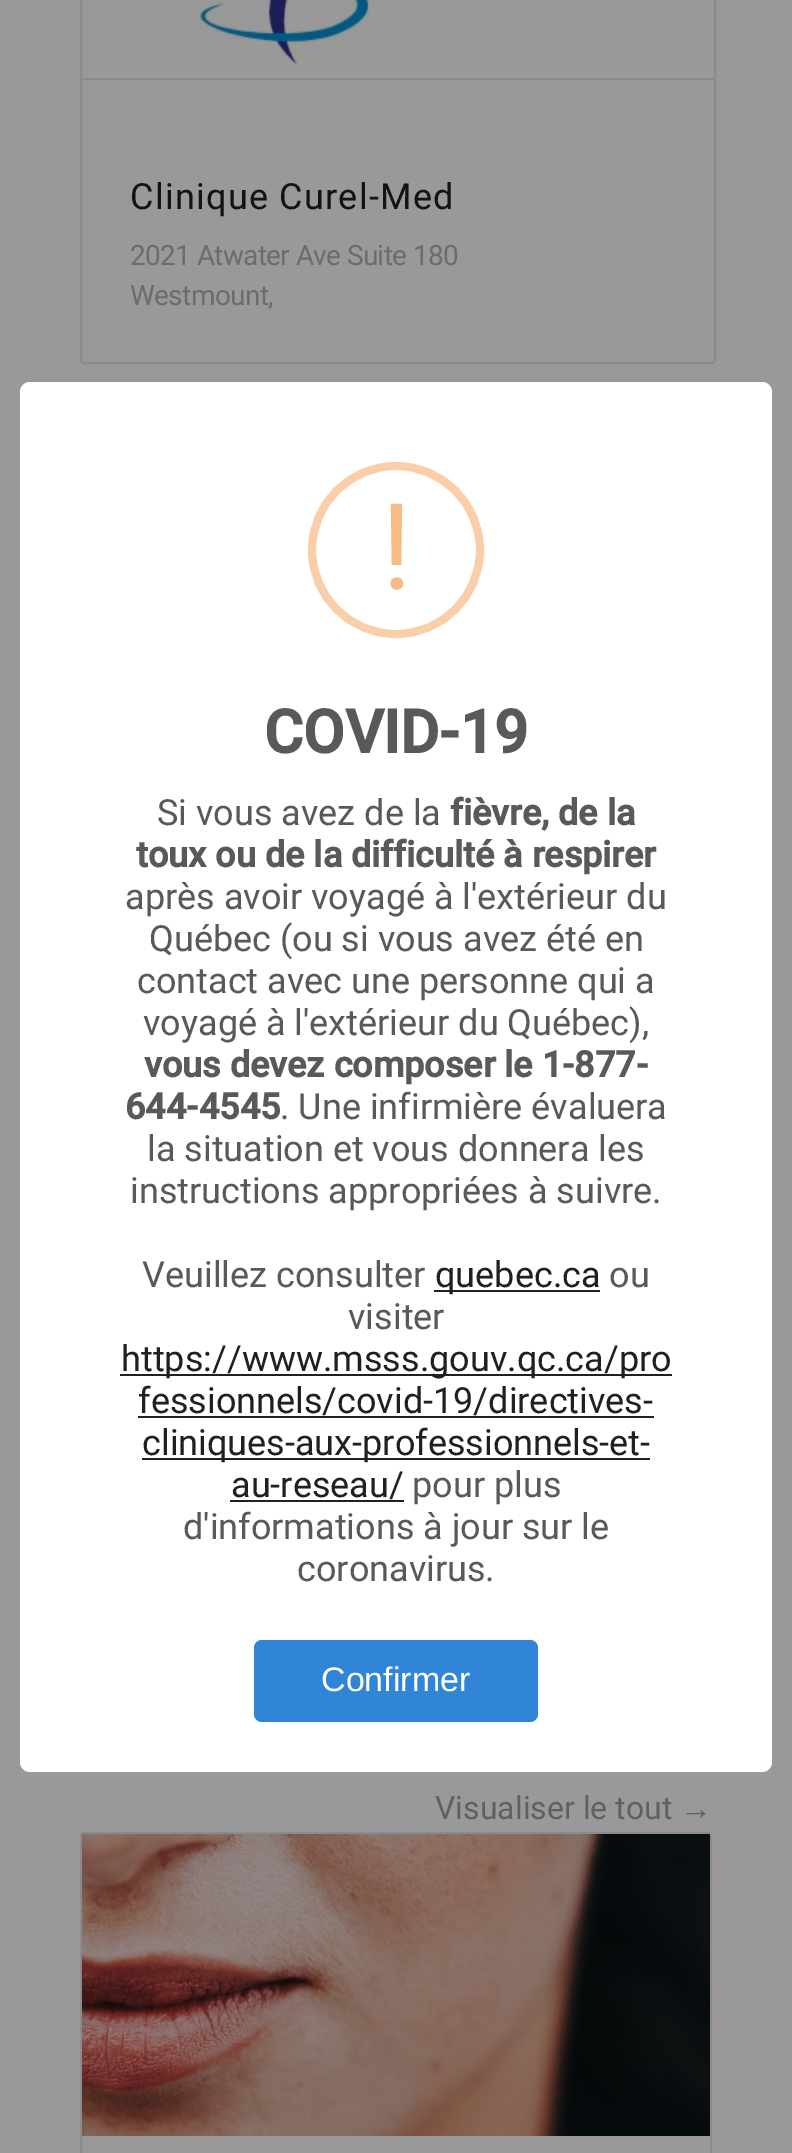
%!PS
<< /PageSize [792 2153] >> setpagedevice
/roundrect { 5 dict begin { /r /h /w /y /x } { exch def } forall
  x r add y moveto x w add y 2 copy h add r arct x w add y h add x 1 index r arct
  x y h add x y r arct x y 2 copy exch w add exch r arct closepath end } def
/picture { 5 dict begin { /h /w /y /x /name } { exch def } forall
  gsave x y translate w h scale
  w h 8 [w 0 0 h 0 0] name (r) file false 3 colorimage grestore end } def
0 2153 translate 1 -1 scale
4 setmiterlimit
0.6 setgray
0 0 792 2153 rectfill
0.545 setgray
2 setlinewidth
81 -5 634 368 3 roundrect stroke
(img1.rgb) 198 0 172 66 picture
82 78 632 2 rectfill
/Roboto-Regular [36 0 0 -36 0 0] selectfont
0.075 0.075 0.082 setrgbcolor
130 209 moveto 1.25 0 (Clinique Curel-Med) ashow
/Roboto-Regular [28 0 0 -28 0 0] selectfont
0.416 0.427 0.439 setrgbcolor
130 265 moveto -0.65 0 (2021 Atwater Ave Suite 180) ashow
130 305 moveto -0.65 0 (Westmount,) ashow
/Roboto-Regular [32 0 0 -32 0 0] selectfont
0.369 0.38 0.392 setrgbcolor
435 1819 moveto (Visualiser le tout) show
/LiberationSans-Regular [32 0 0 -32 0 0] selectfont
680 1819 moveto (→) show
0.545 setgray
81 1833 630 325 3 roundrect stroke
(img2.rgb) 82 1834 628 302 picture
1 setgray
20 382 752 1390 10 roundrect fill
0.98 0.808 0.659 setrgbcolor
8 setlinewidth
newpath 396 550 84 0 360 arc closepath stroke
/Roboto-Regular [120 0 0 -120 0 0] selectfont
0.973 0.733 0.525 setrgbcolor
381 589 moveto (!) show
/Roboto-Bold [60 0 0 -60 0 0] selectfont
0.349 setgray
264 753 moveto (COVID-19) show
/Roboto-Regular [36 0 0 -36 0 0] selectfont
157 825 moveto (Si vous avez de la) show
/Roboto-Bold [36 0 0 -36 0 0] selectfont
450 825 moveto (fièvre, de la) show
136 867 moveto (toux ou de la difficulté à respirer) show
/Roboto-Regular [36 0 0 -36 0 0] selectfont
125 909 moveto (après avoir voyagé à l'extérieur du) show
149 951 moveto (Québec \(ou si vous avez été en) show
137 993 moveto (contact avec une personne qui a) show
143 1035 moveto (voyagé à l'extérieur du Québec\),) show
/Roboto-Bold [36 0 0 -36 0 0] selectfont
144 1077 moveto (vous devez composer le 1-877-) show
125 1119 moveto (644-4545) show
/Roboto-Regular [36 0 0 -36 0 0] selectfont
280 1119 moveto (. Une infirmière évaluera) show
147 1161 moveto (la situation et vous donnera les) show
130 1203 moveto (instructions appropriées à suivre.) show
142 1287 moveto (Veuillez consulter) show
0.122 0.125 0.137 setrgbcolor
434 1290 166 2 rectfill
435 1287 moveto (quebec.ca) show
0.349 setgray
609 1287 moveto (ou) show
348 1329 moveto (visiter) show
0.122 0.125 0.137 setrgbcolor
120 1374 552 2 rectfill
121 1371 moveto (https://www.msss.gouv.qc.ca/pro) show
138 1413 moveto (fessionnels/covid-19/directives-) show
138 1416 516 2 rectfill
142 1458 508 2 rectfill
142 1455 moveto (cliniques-aux-professionnels-et-) show
231 1497 moveto (au-reseau/) show
230 1500 174 2 rectfill
0.349 setgray
412 1497 moveto (pour plus) show
183 1539 moveto (d'informations à jour sur le) show
297 1581 moveto (coronavirus.) show
0.188 0.522 0.839 setrgbcolor
254 1640 284 82 8 roundrect fill
/LiberationSans-Regular [34 0 0 -34 0 0] selectfont
1 setgray
321 1691 moveto (Confirmer) show
showpage
